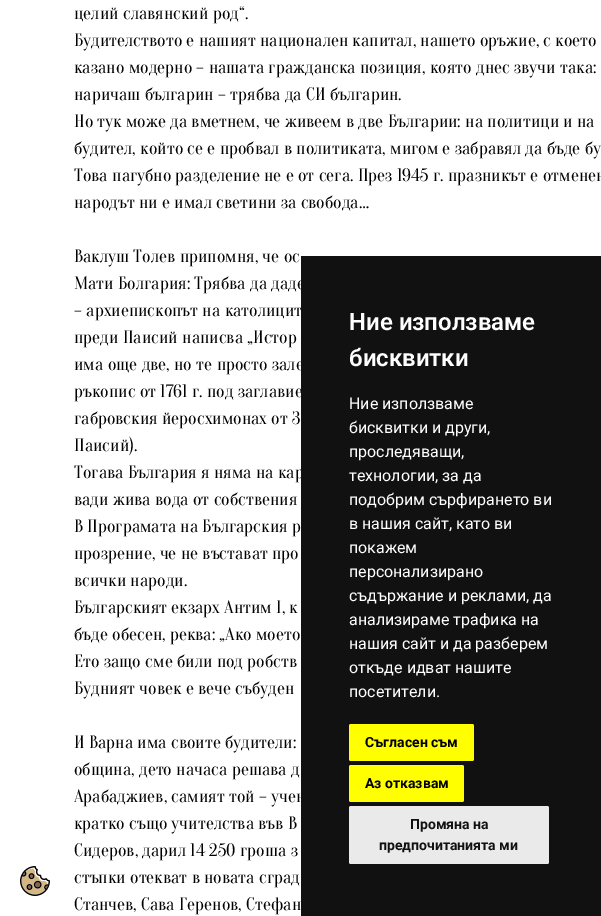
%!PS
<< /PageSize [601 916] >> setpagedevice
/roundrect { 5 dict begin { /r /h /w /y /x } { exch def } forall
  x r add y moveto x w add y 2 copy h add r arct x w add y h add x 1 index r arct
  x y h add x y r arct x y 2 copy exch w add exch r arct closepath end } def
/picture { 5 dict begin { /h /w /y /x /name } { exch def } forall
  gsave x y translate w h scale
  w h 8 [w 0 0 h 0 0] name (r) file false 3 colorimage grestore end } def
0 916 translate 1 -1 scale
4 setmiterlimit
1 setgray
0 0 601 916 rectfill
/Oranienbaum-Regular [18 0 0 -18 0 0] selectfont
0 setgray
74 19 moveto (целий славянский род“.) show
74 46 moveto (Будителството е нашият национален капитал, нашето оръжие, с което) show
74 73 moveto (казано модерно – нашата гражданска позиция, която днес звучи така:) show
74 100 moveto (наричаш българин – трябва да СИ българин.) show
74 127 moveto (Но тук може да вметнем, че живеем в две Българии: на политици и на) show
74 154 moveto (будител, който се е пробвал в политиката, мигом е забравял да бъде бу) show
74 181 moveto (Това пагубно разделение не е от сега. През 1945 г. празникът е отменен) show
74 208 moveto (народът ни е имал светини за свобода…) show
74 262 moveto (Ваклуш Толев припомня, че ос) show
74 289 moveto (Мати Болгария: Трябва да даде) show
74 316 moveto (– архиепископът на католицит) show
74 343 moveto (преди Паисий написва „Истор) show
74 370 moveto (има още две, но те просто зале) show
74 397 moveto (ръкопис от 1761 г. под заглавие) show
74 424 moveto (габровския йеросхимонах от З) show
74 451 moveto (Паисий\).) show
74 478 moveto (Тогава България я няма на кар) show
74 505 moveto (вади жива вода от собствения) show
74 532 moveto (В Програмата на Българския р) show
74 559 moveto (прозрение, че не въстават про) show
74 586 moveto (всички народи.) show
74 613 moveto (Българският екзарх Антим I, к) show
74 640 moveto (бъде обесен, реква: „Ако моето) show
74 667 moveto (Ето защо сме били под робств) show
74 694 moveto (Будният човек е вече събуден) show
74 748 moveto (И Варна има своите будители:) show
74 775 moveto (община, дето начаса решава д) show
74 802 moveto (Арабаджиев, самият той – учен) show
74 829 moveto (кратко също учителства във В) show
74 856 moveto (Сидеров, дарил 14 250 гроша з) show
74 883 moveto (стъпки отекват в новата сград) show
74 910 moveto (Станчев, Сава Геренов, Стефан) show
0.067 setgray
301 256 300 660 rectfill
/Roboto-SemiBold [24 0 0 -24 0 0] selectfont
1 setgray
349 330 moveto (Ние използваме) show
349 366 moveto (бисквитки) show
/Roboto-Regular [16 0 0 -16 0 0] selectfont
349 409 moveto (Ние използваме) show
349 433 moveto (бисквитки и други,) show
349 457 moveto (проследяващи,) show
349 481 moveto (технологии, за да) show
349 505 moveto (подобрим сърфирането ви) show
349 529 moveto (в нашия сайт, като ви) show
349 553 moveto (покажем) show
349 577 moveto (персонализирано) show
349 601 moveto (съдържание и реклами, да) show
349 625 moveto (анализираме трафика на) show
349 649 moveto (нашия сайт и да разберем) show
349 673 moveto (откъде идват нашите) show
349 697 moveto (посетители.) show
1 1 0 setrgbcolor
349 724 125 37 2 roundrect fill
/Roboto-Bold [14 0 0 -14 0 0] selectfont
0 setgray
365 747 moveto (Съгласен съм) show
1 1 0 setrgbcolor
349 765 115 37 2 roundrect fill
0 setgray
365 788 moveto (Аз отказвам) show
0.918 setgray
349 806 200 58 2 roundrect fill
0.067 setgray
410 829 moveto (Промяна на) show
379 850 moveto (предпочитанията ми) show
(img1.rgb) 20 866 30 30 picture
showpage
